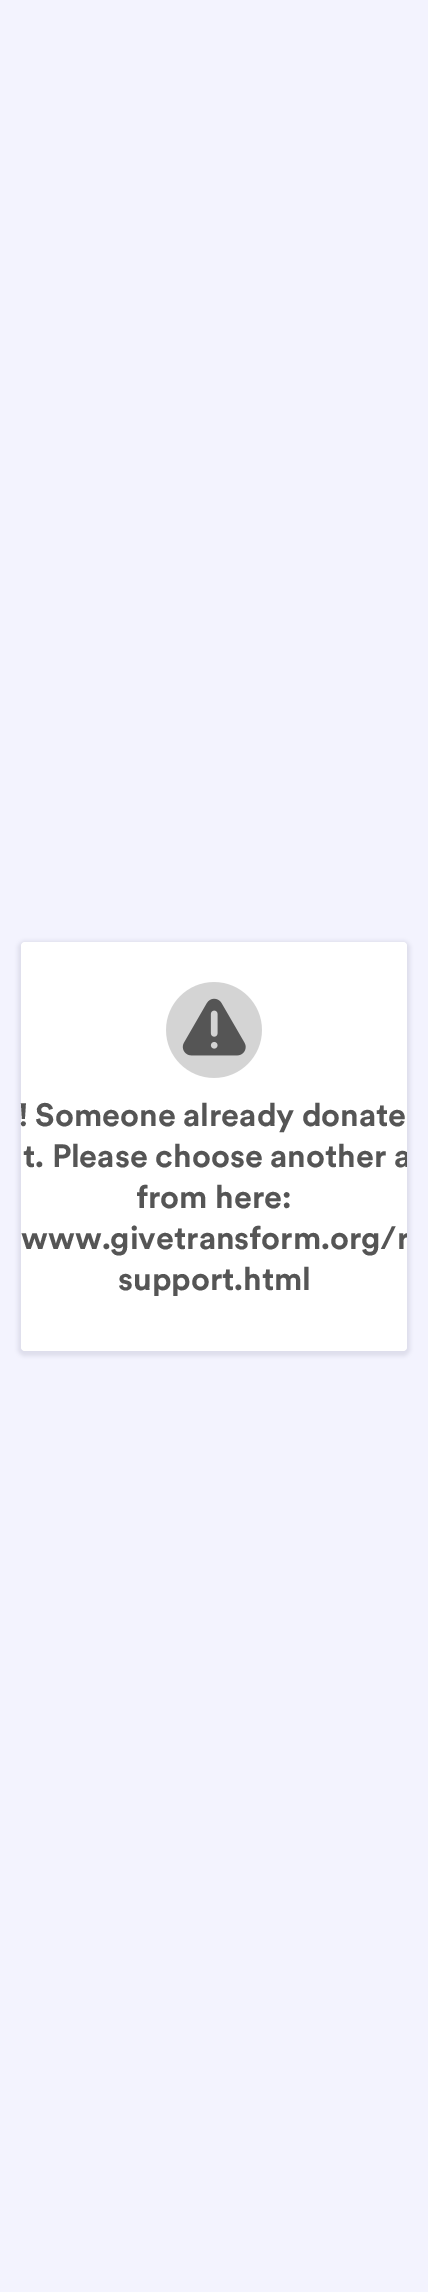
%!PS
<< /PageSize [428 2292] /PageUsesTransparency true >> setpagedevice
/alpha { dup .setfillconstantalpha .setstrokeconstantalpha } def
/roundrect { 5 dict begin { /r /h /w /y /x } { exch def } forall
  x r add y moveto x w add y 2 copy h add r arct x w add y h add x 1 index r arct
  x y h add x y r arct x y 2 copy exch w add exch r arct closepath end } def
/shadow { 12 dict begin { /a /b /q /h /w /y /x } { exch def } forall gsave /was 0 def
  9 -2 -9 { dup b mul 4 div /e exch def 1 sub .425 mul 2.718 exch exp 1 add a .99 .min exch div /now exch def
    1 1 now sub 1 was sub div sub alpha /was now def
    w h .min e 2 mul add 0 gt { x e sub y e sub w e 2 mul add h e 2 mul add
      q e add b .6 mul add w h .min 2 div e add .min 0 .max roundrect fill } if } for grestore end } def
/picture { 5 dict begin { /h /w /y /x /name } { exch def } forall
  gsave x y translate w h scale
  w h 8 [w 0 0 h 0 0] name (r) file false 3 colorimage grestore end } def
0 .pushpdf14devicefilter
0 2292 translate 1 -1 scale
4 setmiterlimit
0.953 0.953 0.996 setrgbcolor
0 0 428 2292 rectfill
0.71 0.714 0.788 setrgbcolor
18 941 392 415 7 2 0.33 shadow
1 setgray
21 942 386 409 4 roundrect fill
(img1.rgb) 166 982 96 96 picture
/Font-Bold [32 0 0 -32 0 0] selectfont
0.333 setgray
19 1126 moveto (! Someone already donate) show
gsave
21 942 386 409 4 roundrect clip newpath
23 1167 moveto (t. Please choose another a) show
grestore
136 1208 moveto (from here:) show
gsave
21 942 386 409 4 roundrect clip newpath
21 1249 moveto (www.givetransform.org/r) show
grestore
118 1290 moveto (support.html) show
.poppdf14devicefilter showpage
